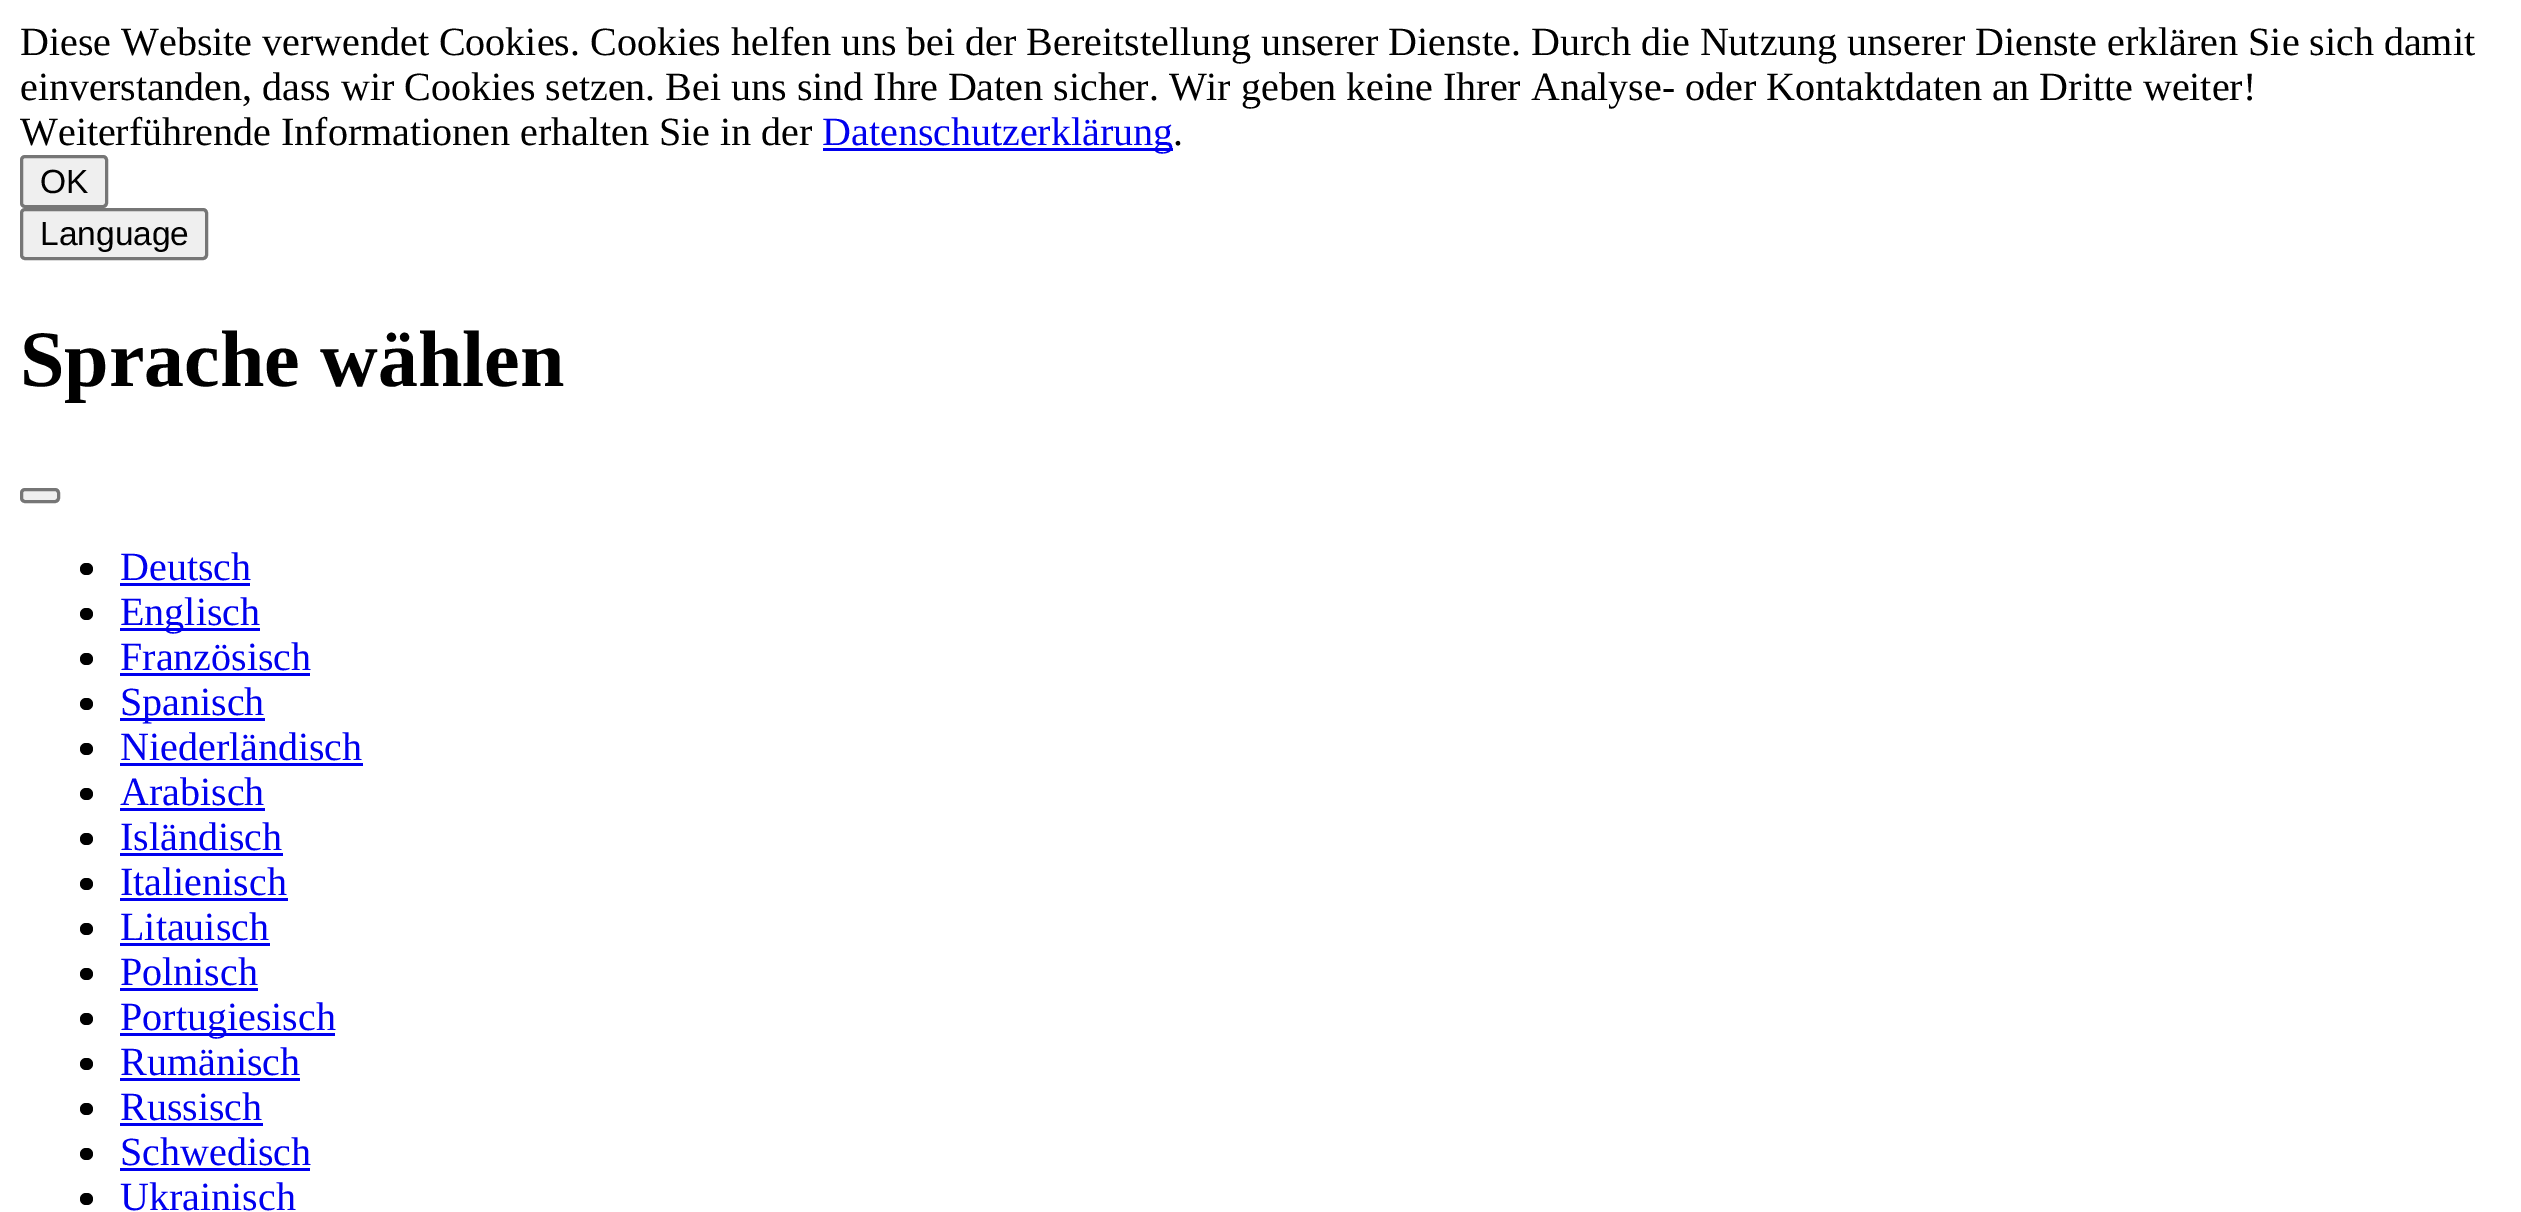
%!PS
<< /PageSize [2521 1212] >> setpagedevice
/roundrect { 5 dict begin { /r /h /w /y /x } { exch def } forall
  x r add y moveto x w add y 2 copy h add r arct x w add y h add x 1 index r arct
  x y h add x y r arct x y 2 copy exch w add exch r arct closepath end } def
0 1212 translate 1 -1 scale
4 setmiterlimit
1 setgray
0 0 2521 1212 rectfill
/LiberationSerif-Regular [40 0 0 -40 0 0] selectfont
0 setgray
20 55 moveto (Diese Website verwendet Cookies. Cookies helfen uns bei der Bereitstellung unserer Dienste. Durch die Nutzung unserer Dienste erklären Sie sich damit) show
20 100 moveto (einverstanden, dass wir Cookies setzen. Bei uns sind Ihre Daten sicher. Wir geben keine Ihrer Analyse- oder Kontaktdaten an Dritte weiter!) show
20 145 moveto (Weiterführende Informationen erhalten Sie in der) show
0 0 0.933 setrgbcolor
823 148 350 3 rectfill
822 145 moveto (Datenschutzerklärung) show
0 setgray
1173 145 moveto (.) show
0.937 setgray
21.5 156.5 85 50 3.5 roundrect gsave fill grestore
0.463 setgray
3 setlinewidth
stroke
/LiberationSans-Regular [33.5 0 0 -33.5 0 0] selectfont
0 setgray
40 193 moveto (OK) show
0.937 setgray
21.5 209.5 185 49 3.5 roundrect gsave fill grestore
0.463 setgray
stroke
0 setgray
40 245 moveto (Language) show
/LiberationSerif-Bold [80 0 0 -80 0 0] selectfont
20 386 moveto (Sprache wählen) show
0.937 setgray
21.5 489.5 37 12 3.5 roundrect gsave fill grestore
0.463 setgray
stroke
0 setgray
80 563 13 12 6 roundrect fill
/LiberationSerif-Regular [40 0 0 -40 0 0] selectfont
0 0 0.933 setrgbcolor
120 580 moveto (Deutsch) show
120 583 130 3 rectfill
0 setgray
80 608 13 12 6 roundrect fill
0 0 0.933 setrgbcolor
120 628 140 3 rectfill
120 625 moveto (Englisch) show
0 setgray
80 653 13 12 6 roundrect fill
0 0 0.933 setrgbcolor
120 670 moveto (Französisch) show
120 673 190 3 rectfill
0 setgray
80 698 13 12 6 roundrect fill
0 0 0.933 setrgbcolor
120 718 145 3 rectfill
120 715 moveto (Spanisch) show
0 setgray
80 743 13 12 6 roundrect fill
0 0 0.933 setrgbcolor
120 760 moveto (Niederländisch) show
120 763 243 3 rectfill
0 setgray
80 788 13 12 6 roundrect fill
0 0 0.933 setrgbcolor
120 805 moveto (Arabisch) show
120 808 145 3 rectfill
0 setgray
80 833 13 12 6 roundrect fill
0 0 0.933 setrgbcolor
120 850 moveto (Isländisch) show
120 853 163 3 rectfill
0 setgray
80 878 13 12 6 roundrect fill
0 0 0.933 setrgbcolor
120 895 moveto (Italienisch) show
120 898 168 3 rectfill
0 setgray
80 923 13 12 6 roundrect fill
0 0 0.933 setrgbcolor
120 940 moveto (Litauisch) show
120 943 150 3 rectfill
0 setgray
80 968 13 12 6 roundrect fill
0 0 0.933 setrgbcolor
120 985 moveto (Polnisch) show
120 988 138 3 rectfill
0 setgray
80 1013 13 12 6 roundrect fill
0 0 0.933 setrgbcolor
120 1033 215 3 rectfill
120 1030 moveto (Portugiesisch) show
0 setgray
80 1058 13 12 6 roundrect fill
0 0 0.933 setrgbcolor
120 1075 moveto (Rumänisch) show
120 1078 180 3 rectfill
0 setgray
80 1103 13 12 6 roundrect fill
0 0 0.933 setrgbcolor
120 1120 moveto (Russisch) show
120 1123 143 3 rectfill
0 setgray
80 1148 13 12 6 roundrect fill
0 0 0.933 setrgbcolor
120 1165 moveto (Schwedisch) show
120 1168 190 3 rectfill
0 setgray
80 1193 13 12 6 roundrect fill
0 0 0.933 setrgbcolor
120 1210 moveto (Ukrainisch) show
showpage
